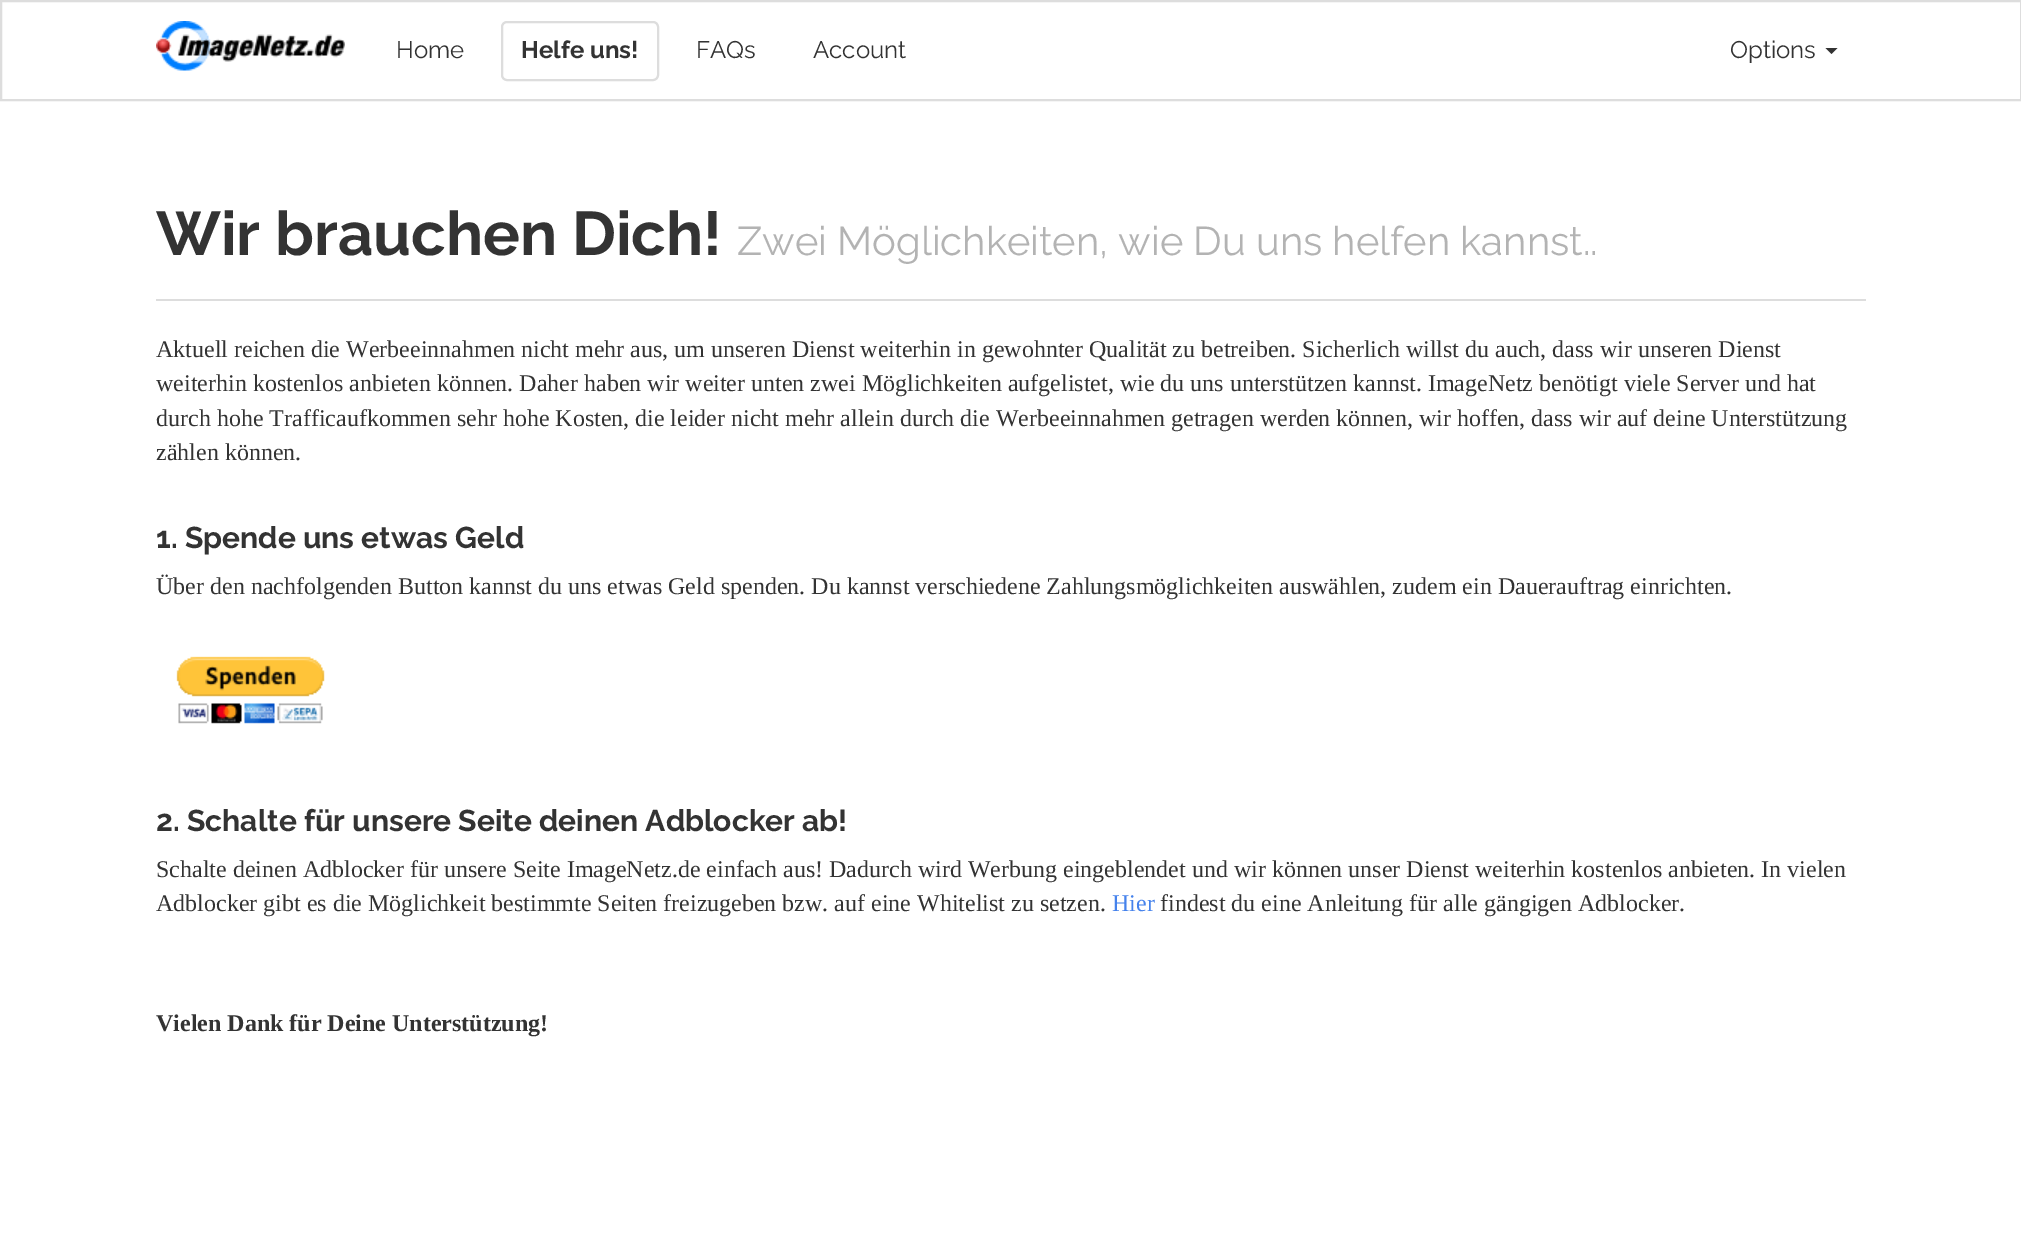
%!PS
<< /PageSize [2021 1242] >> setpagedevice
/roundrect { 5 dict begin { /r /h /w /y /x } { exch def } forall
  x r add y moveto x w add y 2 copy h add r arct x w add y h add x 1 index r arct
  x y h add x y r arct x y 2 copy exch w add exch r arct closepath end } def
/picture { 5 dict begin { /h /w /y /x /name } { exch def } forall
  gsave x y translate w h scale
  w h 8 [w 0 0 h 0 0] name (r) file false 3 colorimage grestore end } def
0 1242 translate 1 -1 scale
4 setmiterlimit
1 setgray
0 0 2021 1242 rectfill
0.867 setgray
2 setlinewidth
1 1 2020 99 rectstroke
(img1.rgb) 156 21 189 50 picture
/Raleway-Regular [24 0 0 -24 0 0] selectfont
0.2 setgray
396 58 moveto (Home) show
0.867 setgray
502 22 156 58 5 roundrect stroke
/Raleway-Bold [24 0 0 -24 0 0] selectfont
0.2 setgray
521 58 moveto (Helfe uns!) show
/Raleway-Regular [24 0 0 -24 0 0] selectfont
696 58 moveto (FAQs) show
813 58 moveto (Account) show
1730 58 moveto (Options) show
newpath 1825.5 48 moveto 1837.5 48 lineto 1831.5 54 lineto closepath fill
0.867 setgray
156 299 1710 2 rectfill
/Raleway-Bold [61.5 0 0 -61.5 0 0] selectfont
0.2 setgray
156 255 moveto (Wir brauchen Dich!) show
/Raleway-Regular [40 0 0 -40 0 0] selectfont
0.702 setgray
737 255 moveto (Zwei Möglichkeiten, wie Du uns helfen kannst..) show
/LiberationSerif-Regular [24 0 0 -24 0 0] selectfont
0.2 setgray
156 357 moveto (Aktuell reichen die Werbeeinnahmen nicht mehr aus, um unseren Dienst weiterhin in gewohnter Qualität zu betreiben. Sicherlich willst du auch, dass wir unseren Dienst) show
156 391 moveto (weiterhin kostenlos anbieten können. Daher haben wir weiter unten zwei Möglichkeiten aufgelistet, wie du uns unterstützen kannst. ImageNetz benötigt viele Server und hat) show
156 426 moveto (durch hohe Trafficaufkommen sehr hohe Kosten, die leider nicht mehr allein durch die Werbeeinnahmen getragen werden können, wir hoffen, dass wir auf deine Unterstützung) show
156 460 moveto (zählen können.) show
/Raleway-Bold [30 0 0 -30 0 0] selectfont
156 548 moveto (1. Spende uns etwas Geld) show
/LiberationSerif-Regular [24 0 0 -24 0 0] selectfont
156 594 moveto (Über den nachfolgenden Button kannst du uns etwas Geld spenden. Du kannst verschiedene Zahlungsmöglichkeiten auswählen, zudem ein Dauerauftrag einrichten.) show
(img2.rgb) 176 656 149 68 picture
/Raleway-Bold [30 0 0 -30 0 0] selectfont
156 831 moveto (2. Schalte für unsere Seite deinen Adblocker ab!) show
/LiberationSerif-Regular [24 0 0 -24 0 0] selectfont
156 877 moveto (Schalte deinen Adblocker für unsere Seite ImageNetz.de einfach aus! Dadurch wird Werbung eingeblendet und wir können unser Dienst weiterhin kostenlos anbieten. In vielen) show
156 911 moveto (Adblocker gibt es die Möglichkeit bestimmte Seiten freizugeben bzw. auf eine Whitelist zu setzen.) show
0.271 0.51 0.925 setrgbcolor
1112 911 moveto (Hier) show
0.2 setgray
1160 911 moveto (findest du eine Anleitung für alle gängigen Adblocker.) show
/LiberationSerif-Bold [24 0 0 -24 0 0] selectfont
156 1031 moveto (Vielen Dank für Deine Unterstützung!) show
showpage
